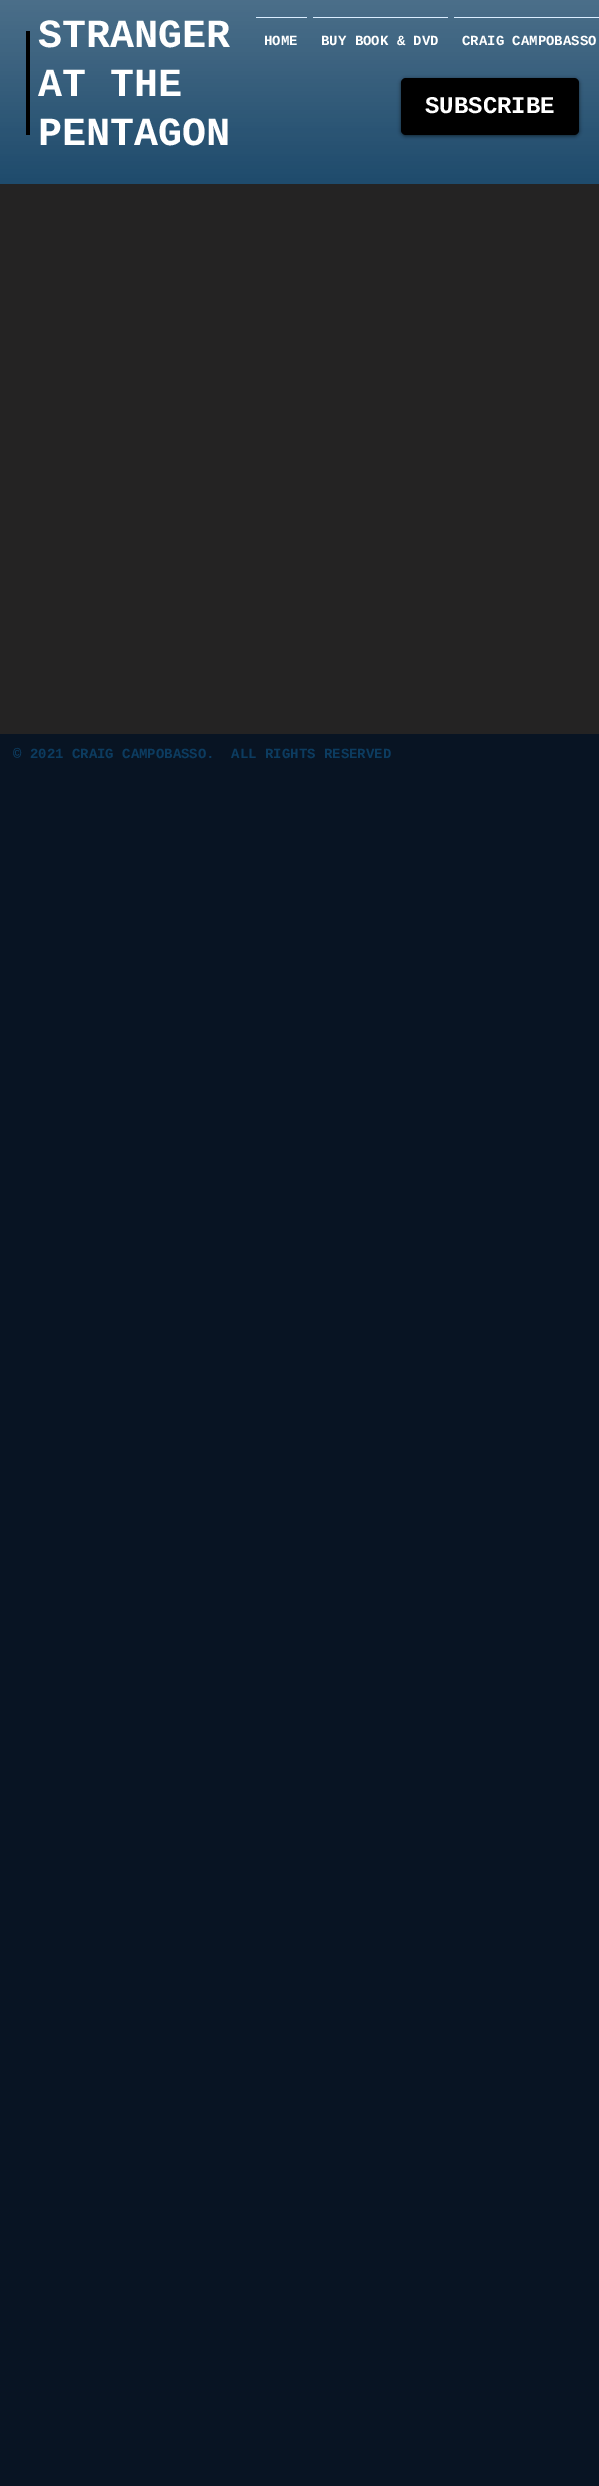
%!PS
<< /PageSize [599 2486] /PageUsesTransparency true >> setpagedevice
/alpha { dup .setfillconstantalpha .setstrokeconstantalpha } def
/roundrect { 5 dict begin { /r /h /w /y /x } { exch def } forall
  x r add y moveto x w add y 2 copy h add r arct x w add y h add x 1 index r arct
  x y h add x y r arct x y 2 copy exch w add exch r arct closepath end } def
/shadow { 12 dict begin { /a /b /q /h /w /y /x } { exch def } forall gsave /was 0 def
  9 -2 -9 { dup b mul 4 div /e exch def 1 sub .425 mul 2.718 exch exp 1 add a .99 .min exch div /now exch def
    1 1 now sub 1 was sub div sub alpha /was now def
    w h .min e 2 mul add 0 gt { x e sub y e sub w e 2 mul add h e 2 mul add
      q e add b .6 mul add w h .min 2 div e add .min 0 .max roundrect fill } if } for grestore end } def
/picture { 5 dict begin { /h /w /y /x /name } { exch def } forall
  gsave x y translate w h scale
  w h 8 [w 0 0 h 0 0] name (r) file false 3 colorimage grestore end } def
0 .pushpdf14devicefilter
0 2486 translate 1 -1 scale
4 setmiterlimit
0.031 0.078 0.137 setrgbcolor
0 0 599 2486 rectfill
0.047 0.235 0.376 setrgbcolor
0 0 599 184 rectfill
(img1.rgb) 0 0 599 184 picture
0 setgray
26 31 4 104 rectfill
/LiberationMono-Bold [40 0 0 -40 0 0] selectfont
1 setgray
38 47 moveto (STRANGER) show
38 96 moveto (AT THE) show
38 145 moveto (PENTAGON) show
0.855 0.929 1 setrgbcolor
256 17 51 1 rectfill
/LiberationMono-Bold [14 0 0 -14 0 0] selectfont
1 setgray
264 45 moveto (HOME) show
0.855 0.929 1 setrgbcolor
313 17 135 1 rectfill
1 setgray
321 45 moveto (BUY BOOK & DVD) show
0.855 0.929 1 setrgbcolor
454 17 145 1 rectfill
1 setgray
462 45 moveto (CRAIG CAMPOBASSO) show
0 setgray
401 79 178 57 5 2 0.6 shadow
401 78 178 57 5 roundrect fill
/LiberationMono-Bold [24 0 0 -24 0 0] selectfont
1 setgray
425 113 moveto (SUBSCRIBE) show
0.141 0.137 0.137 setrgbcolor
0 184 599 550 rectfill
/LiberationMono-Bold [14 0 0 -14 0 0] selectfont
0.047 0.235 0.376 setrgbcolor
13 758 moveto (© 2021 CRAIG CAMPOBASSO.  ALL RIGHTS RESERVED) show
.poppdf14devicefilter showpage
